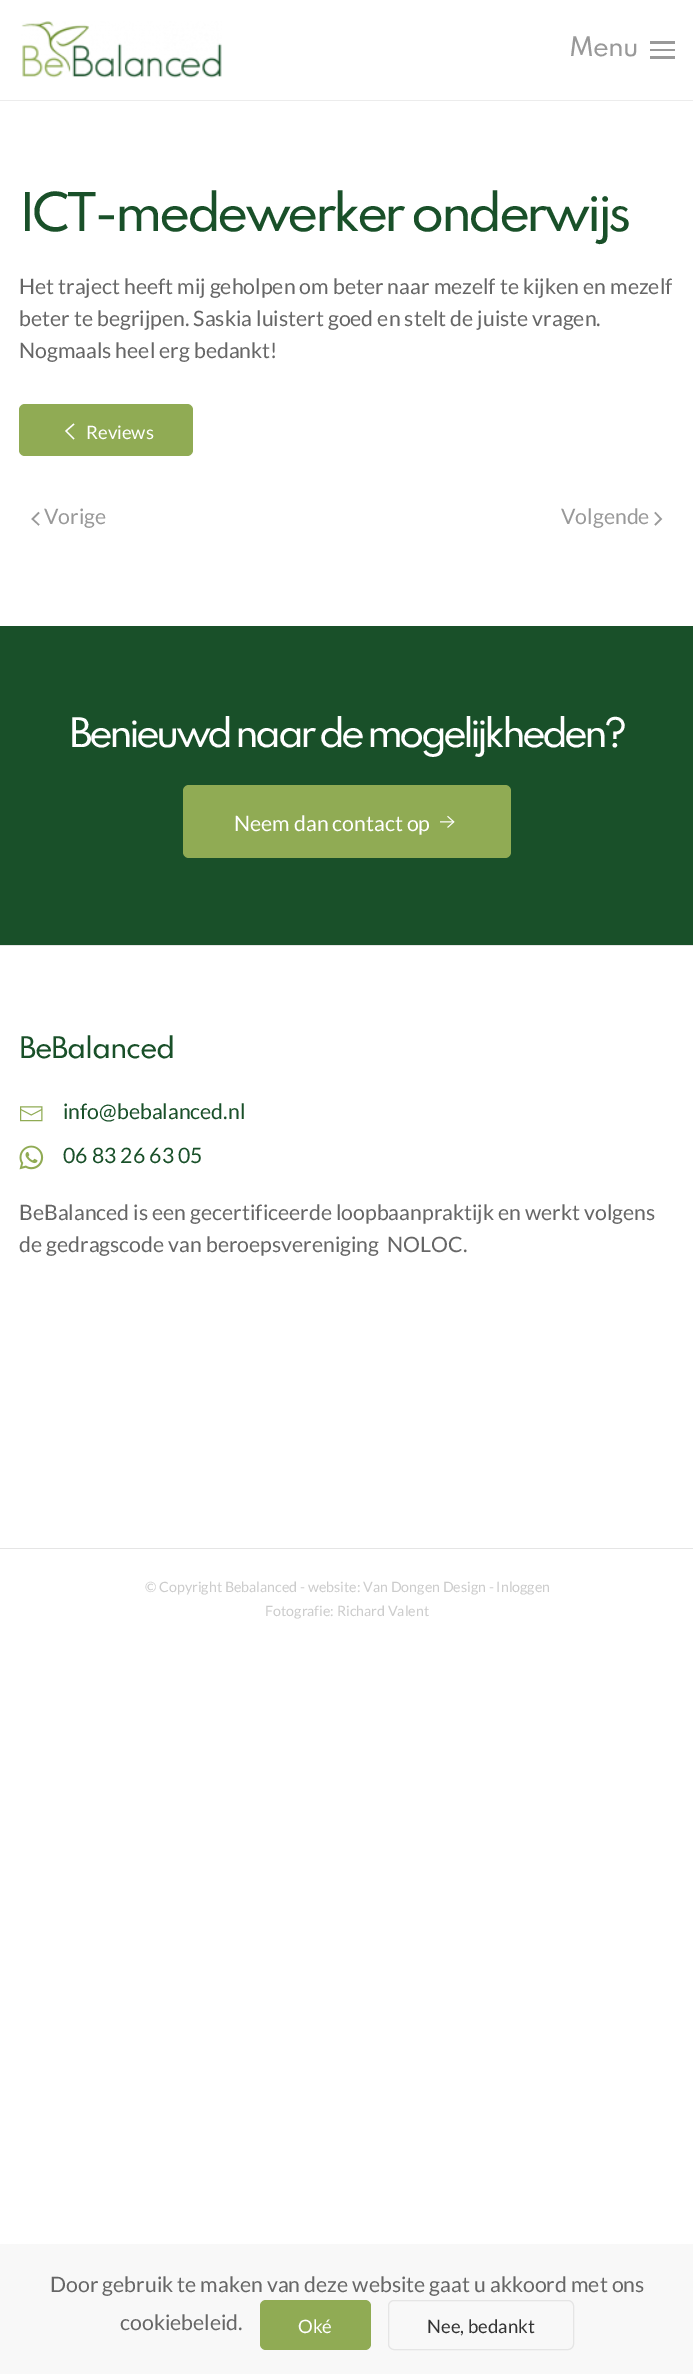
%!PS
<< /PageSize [693 2374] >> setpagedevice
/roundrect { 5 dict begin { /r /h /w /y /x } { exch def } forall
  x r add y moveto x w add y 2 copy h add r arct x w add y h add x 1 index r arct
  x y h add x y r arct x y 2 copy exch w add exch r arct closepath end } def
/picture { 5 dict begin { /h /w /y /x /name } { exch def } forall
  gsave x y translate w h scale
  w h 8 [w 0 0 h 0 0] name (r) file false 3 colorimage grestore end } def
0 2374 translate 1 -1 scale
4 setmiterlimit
1 setgray
0 0 693 2374 rectfill
0.925 setgray
0 100 693 1 rectfill
(img1.rgb) 21 21 201 57 picture
/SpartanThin-Thin [24 0 0 -24 0 0] selectfont
0.6 setgray
569 56 moveto -1 0 (Menu) ashow
650 41 25 3 rectfill
650 49 25 2 rectfill
650 56 25 3 rectfill
/SpartanThin-Thin [47.4 0 0 -47.4 0 0] selectfont
0.098 0.314 0.161 setrgbcolor
19 231 moveto -3.75 0 (ICT-medewerker onderwijs) ashow
/Lato-Regular [21.25 0 0 -21.25 0 0] selectfont
0.4 setgray
19 294 moveto (Het traject heeft mij geholpen om beter naar mezelf te kijken en mezelf) show
19 326 moveto (beter te begrijpen. Saskia luistert goed en stelt de juiste vragen.) show
19 358 moveto (Nogmaals heel erg bedankt!) show
0.565 0.671 0.329 setrgbcolor
19 404 174 52 6 roundrect fill
1 setgray
1.3 setlinewidth
newpath 74 439 moveto 66 431 lineto 74 424 lineto stroke
/Lato-Regular [18.5 0 0 -18.5 0 0] selectfont
86 439 moveto (Reviews) show
0.6 setgray
1.5 setlinewidth
newpath 39 512.5 moveto 32.5 519 lineto 39 525 lineto stroke
/Lato-Regular [21.25 0 0 -21.25 0 0] selectfont
44 524 moveto (Vorige) show
561 524 moveto (Volgende) show
newpath 655 512.5 moveto 661 519 lineto 655 525 lineto stroke
0.098 0.314 0.161 setrgbcolor
0 626 693 319 rectfill
/SpartanThin-Thin [36.1 0 0 -36.1 0 0] selectfont
1 setgray
69 747 moveto -3.75 0 (Benieuwd naar de mogelijkheden?) ashow
0.565 0.671 0.329 setrgbcolor
183 785 328 73 6 roundrect fill
/Lato-Regular [21.25 0 0 -21.25 0 0] selectfont
1 setgray
234 831 moveto (Neem dan contact op) show
(img2.rgb) 440 815 15 13 picture
0.898 setgray
0 945 693 1 rectfill
/SpartanThin-Thin [26.5 0 0 -26.5 0 0] selectfont
0.098 0.314 0.161 setrgbcolor
19 1058 moveto -1.25 0 (BeBalanced) ashow
(img3.rgb) 20 1106 23 16 picture
/Lato-Regular [21.25 0 0 -21.25 0 0] selectfont
63 1119 moveto (info@bebalanced.nl) show
(img4.rgb) 19 1145 25 25 picture
63 1163 moveto (06 83 26 63 05) show
0.4 setgray
19 1220 moveto (BeBalanced is een gecertificeerde loopbaanpraktijk en werkt volgens) show
19 1252 moveto (de gedragscode van beroepsvereniging  NOLOC.) show
0.898 setgray
0 1548 693 1 rectfill
/Lato-Regular [14.25 0 0 -14.25 0 0] selectfont
0.8 setgray
145 1592 moveto (© Copyright Bebalanced - website: Van Dongen Design - Inloggen) show
265 1616 moveto (Fotografie: Richard Valent) show
0.973 setgray
0 2244 693 130 rectfill
/Lato-Regular [21.25 0 0 -21.25 0 0] selectfont
0.4 setgray
50 2292 moveto (Door gebruik te maken van deze website gaat u akkoord met ons) show
120 2330 moveto (cookiebeleid.) show
0.565 0.671 0.329 setrgbcolor
260 2300 111 50 6 roundrect fill
/Lato-Regular [18.5 0 0 -18.5 0 0] selectfont
1 setgray
298 2333 moveto (Oké) show
0.898 setgray
1 setlinewidth
388.5 2300.5 185 49 5.5 roundrect stroke
0.2 setgray
427 2333 moveto (Nee, bedankt) show
showpage
